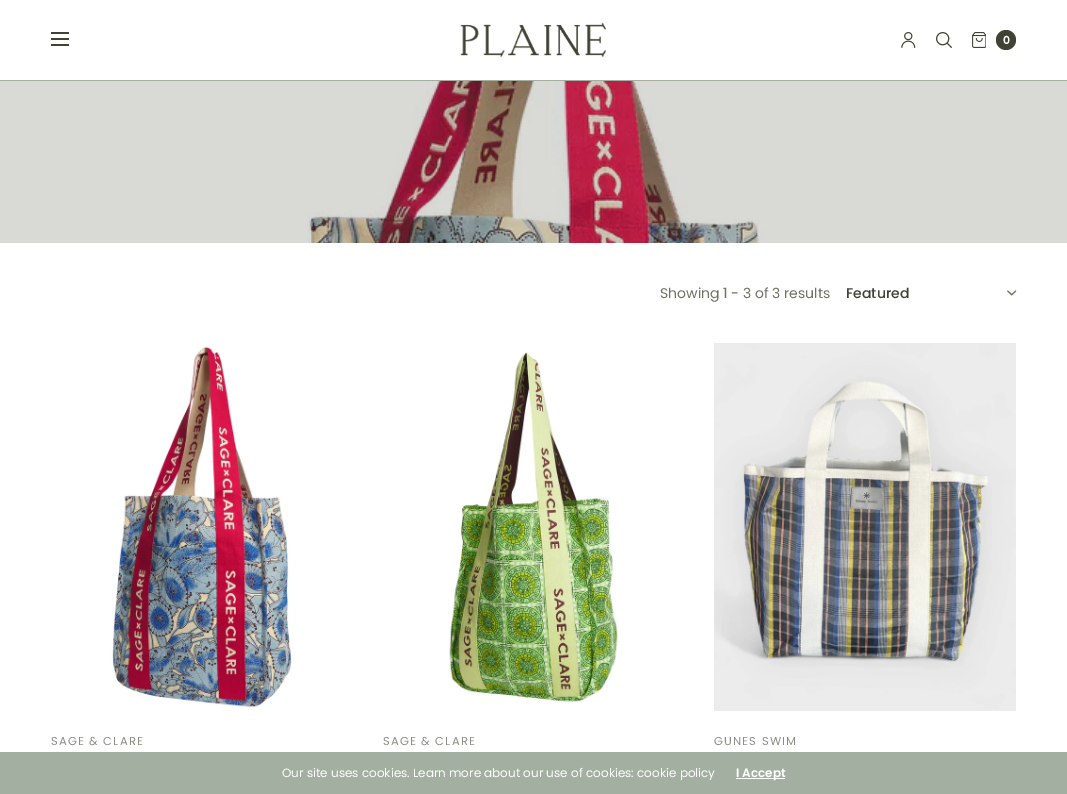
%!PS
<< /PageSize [1067 794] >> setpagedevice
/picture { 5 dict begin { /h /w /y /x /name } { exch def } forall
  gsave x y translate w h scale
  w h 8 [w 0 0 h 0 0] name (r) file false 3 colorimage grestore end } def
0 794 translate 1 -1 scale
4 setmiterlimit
1 setgray
0 0 1067 794 rectfill
0.639 0.686 0.627 setrgbcolor
0 80 1067 1 rectfill
0.251 0.263 0.2 setrgbcolor
51 32 18 2 rectfill
51 38 18 2 rectfill
51 44 18 2 rectfill
(img1.rgb) 460 23 147 34 picture
(img2.rgb) 901 32 15 16 picture
(img3.rgb) 936 32 16 16 picture
(img4.rgb) 972 32 14 16 picture
newpath 1006 40 10 0 360 arc closepath fill
/Poppins-SemiBold [11 0 0 -11 0 0] selectfont
1 setgray
1003 44 moveto (0) show
(img5.rgb) 0 81 1067 162 picture
/Poppins-Regular [14 0 0 -14 0 0] selectfont
0.439 0.447 0.4 setrgbcolor
660 298 moveto (Showing 1 - 3 of 3 results) show
/Poppins-Medium [14 0 0 -14 0 0] selectfont
0.251 0.263 0.2 setrgbcolor
846 298 moveto (Featured) show
(img6.rgb) 1007 290 10 6 picture
(img7.rgb) 111 346 181 362 picture
/Poppins-Regular [11.5 0 0 -11.5 0 0] selectfont
0.549 0.557 0.522 setrgbcolor
51 745 moveto 1.2 0 (SAGE & CLARE) ashow
(img8.rgb) 449 352 170 350 picture
383 745 moveto 1.2 0 (SAGE & CLARE) ashow
(img9.rgb) 714 343 302 368 picture
714 745 moveto 1.2 0 (GUNES SWIM) ashow
0.639 0.686 0.627 setrgbcolor
0 752 1067 42 rectfill
/Poppins-Regular [12 0 0 -12 0 0] selectfont
1 setgray
282 777 moveto (Our site uses cookies. Learn more about our use of cookies: cookie policy) show
736 778 49 1 rectfill
/Poppins-SemiBold [12 0 0 -12 0 0] selectfont
736 777 moveto (I Accept) show
showpage
